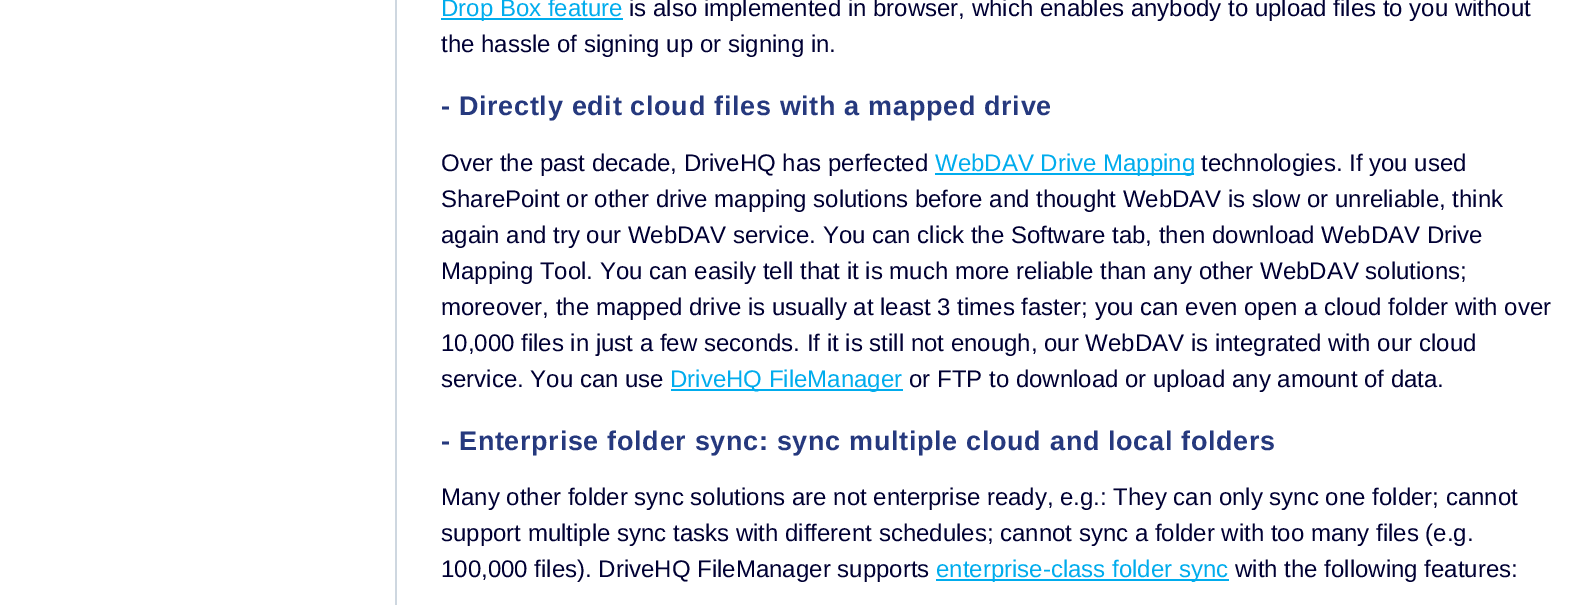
%!PS
<< /PageSize [1577 605] >> setpagedevice
0 605 translate 1 -1 scale
4 setmiterlimit
1 setgray
0 0 1577 605 rectfill
0.808 0.843 0.878 setrgbcolor
395 0 2 605 rectfill
0 0.675 0.929 setrgbcolor
441 18 182 2 rectfill
/LiberationSans-Regular [24 0 0 -24 0 0] selectfont
441 16 moveto (Drop Box feature) show
0 0 0.2 setrgbcolor
629 16 moveto (is also implemented in browser, which enables anybody to upload files to you without) show
441 52 moveto (the hassle of signing up or signing in.) show
/LiberationSans-Bold [27 0 0 -27 0 0] selectfont
0.149 0.224 0.494 setrgbcolor
441 115 moveto 0.68 0 (- Directly edit cloud files with a mapped drive) ashow
/LiberationSans-Regular [24 0 0 -24 0 0] selectfont
0 0 0.2 setrgbcolor
441 171 moveto (Over the past decade, DriveHQ has perfected) show
0 0.675 0.929 setrgbcolor
935 173 259 2 rectfill
935 171 moveto (WebDAV Drive Mapping) show
0 0 0.2 setrgbcolor
1201 171 moveto (technologies. If you used) show
441 207 moveto (SharePoint or other drive mapping solutions before and thought WebDAV is slow or unreliable, think) show
441 243 moveto (again and try our WebDAV service. You can click the Software tab, then download WebDAV Drive) show
441 279 moveto (Mapping Tool. You can easily tell that it is much more reliable than any other WebDAV solutions;) show
441 315 moveto (moreover, the mapped drive is usually at least 3 times faster; you can even open a cloud folder with over) show
441 351 moveto (10,000 files in just a few seconds. If it is still not enough, our WebDAV is integrated with our cloud) show
441 387 moveto (service. You can use) show
0 0.675 0.929 setrgbcolor
671 389 232 2 rectfill
670 387 moveto (DriveHQ FileManager) show
0 0 0.2 setrgbcolor
909 387 moveto (or FTP to download or upload any amount of data.) show
/LiberationSans-Bold [27 0 0 -27 0 0] selectfont
0.149 0.224 0.494 setrgbcolor
441 450 moveto 0.68 0 (- Enterprise folder sync: sync multiple cloud and local folders) ashow
/LiberationSans-Regular [24 0 0 -24 0 0] selectfont
0 0 0.2 setrgbcolor
441 505 moveto (Many other folder sync solutions are not enterprise ready, e.g.: They can only sync one folder; cannot) show
441 541 moveto (support multiple sync tasks with different schedules; cannot sync a folder with too many files \(e.g.) show
441 577 moveto (100,000 files\). DriveHQ FileManager supports) show
0 0.675 0.929 setrgbcolor
936 579 293 2 rectfill
936 577 moveto (enterprise-class folder sync) show
0 0 0.2 setrgbcolor
1235 577 moveto (with the following features:) show
showpage
